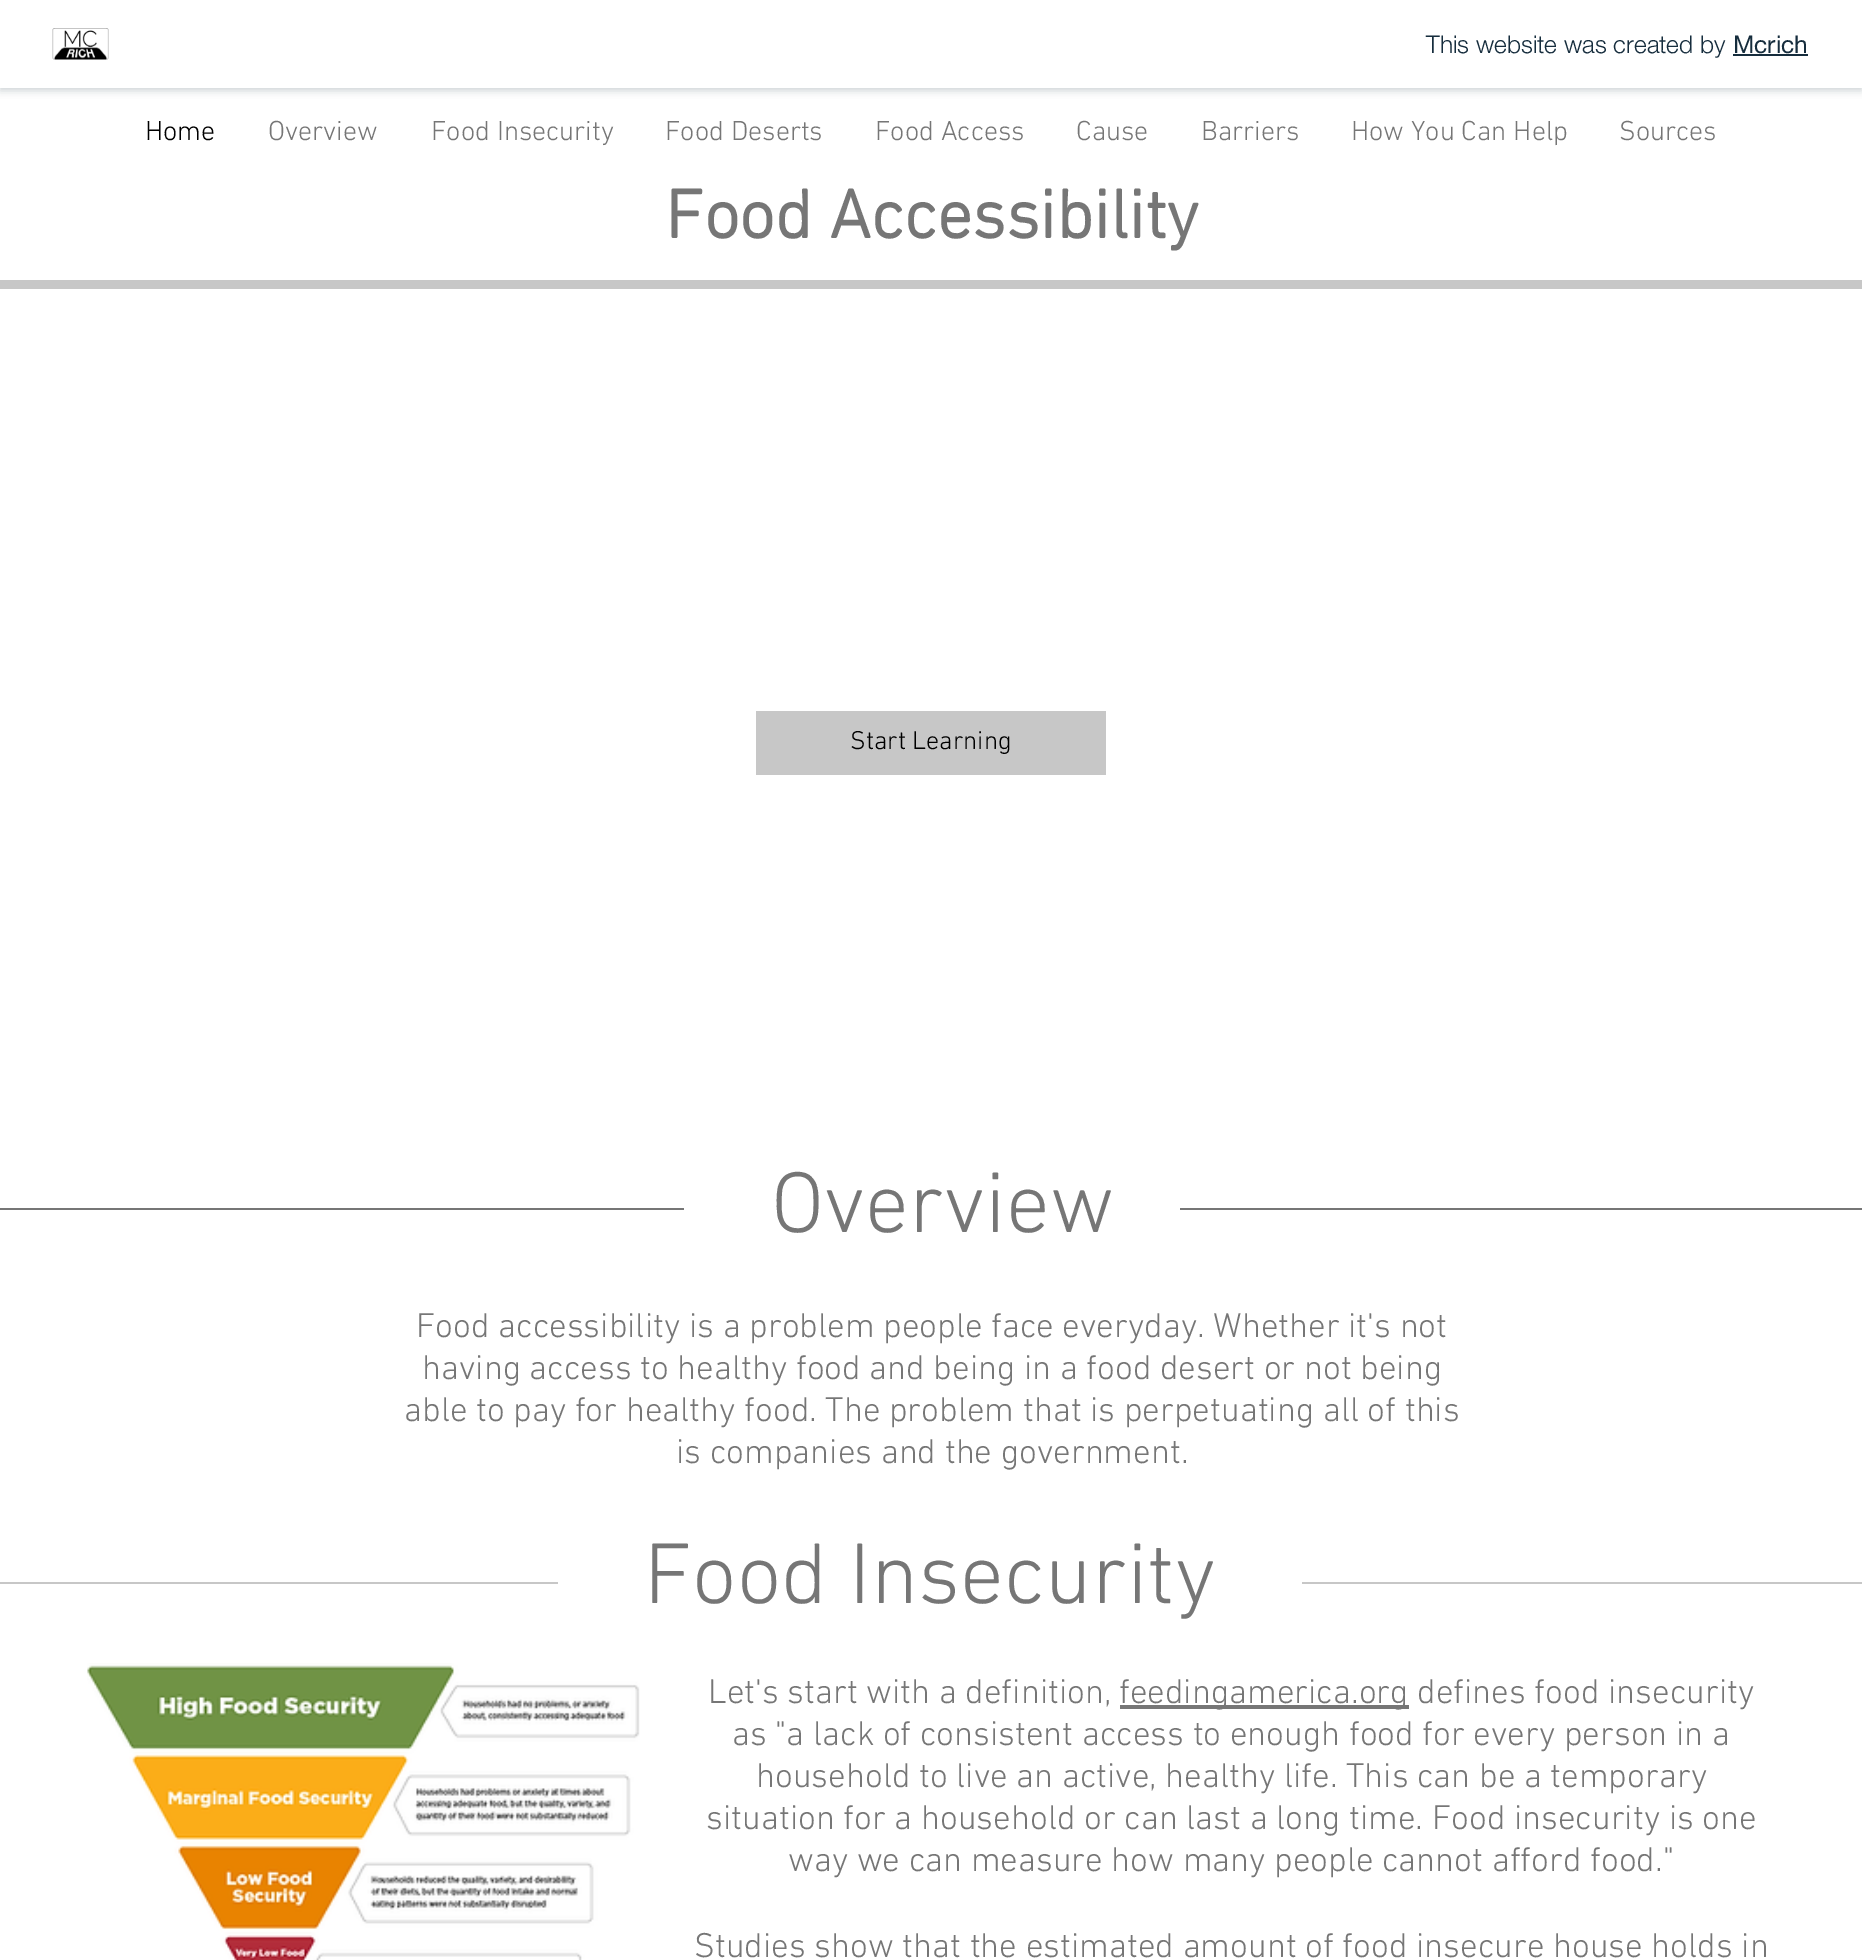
%!PS
<< /PageSize [1862 1960] /PageUsesTransparency true >> setpagedevice
/alpha { dup .setfillconstantalpha .setstrokeconstantalpha } def
/roundrect { 5 dict begin { /r /h /w /y /x } { exch def } forall
  x r add y moveto x w add y 2 copy h add r arct x w add y h add x 1 index r arct
  x y h add x y r arct x y 2 copy exch w add exch r arct closepath end } def
/shadow { 12 dict begin { /a /b /q /h /w /y /x } { exch def } forall gsave /was 0 def
  9 -2 -9 { dup b mul 4 div /e exch def 1 sub .425 mul 2.718 exch exp 1 add a .99 .min exch div /now exch def
    1 1 now sub 1 was sub div sub alpha /was now def
    w h .min e 2 mul add 0 gt { x e sub y e sub w e 2 mul add h e 2 mul add
      q e add b .6 mul add w h .min 2 div e add .min 0 .max roundrect fill } if } for grestore end } def
/picture { 5 dict begin { /h /w /y /x /name } { exch def } forall
  gsave x y translate w h scale
  w h 8 [w 0 0 h 0 0] name (r) file false 3 colorimage grestore end } def
0 .pushpdf14devicefilter
0 1960 translate 1 -1 scale
4 setmiterlimit
1 setgray
0 0 1862 1960 rectfill
0.086 0.176 0.239 setrgbcolor
0 0 1862 88 0 5 0.12 shadow
0 4 1862 87 0 3.5 0.12 shadow
1 setgray
0 0 1862 88 rectfill
(img1.rgb) 52 28 57 32 picture
/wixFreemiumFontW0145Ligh-Light [24.5 0 0 -24.5 0 0] selectfont
0.086 0.176 0.239 setrgbcolor
1426 53 moveto (This website was created by) show
/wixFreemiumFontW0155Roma-Regular [24.5 0 0 -24.5 0 0] selectfont
1733 53 moveto (Mcrich) show
1733 54 75 2 rectfill
/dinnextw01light-Light [28 0 0 -28 0 0] selectfont
0 setgray
145 140 moveto (Home) show
0.463 setgray
268 140 moveto (Overview) show
431 140 moveto (Food Insecurity) show
665 140 moveto (Food Deserts) show
875 140 moveto (Food Access) show
1076 140 moveto (Cause) show
1201 140 moveto (Barriers) show
1351 140 moveto (How You Can Help) show
1619 140 moveto (Sources) show
/dinnextw01light-Bold [70 0 0 -70 0 0] selectfont
665 238 moveto (Food Accessibility) show
0.78 setgray
0 280 1862 9 rectfill
756 711 350 64 rectfill
/dinnextw01light-Light [26.25 0 0 -26.25 0 0] selectfont
0 setgray
850 749 moveto (Start Learning) show
0.463 setgray
0 1208 1862 2 rectfill
1 setgray
684 1208 496 2 rectfill
/dinnextw01light-Light [87.5 0 0 -87.5 0 0] selectfont
0.463 setgray
771 1232 moveto (Overview) show
/dinnextw01light-Light [35 0 0 -35 0 0] selectfont
416 1337 moveto (Food accessibility is a problem people face everyday. Whether it's not) show
422 1379 moveto (having access to healthy food and being in a food desert or not being) show
404 1421 moveto (able to pay for healthy food. The problem that is perpetuating all of this) show
676 1463 moveto (is companies and the government.) show
0.78 setgray
0 1582 1862 2 rectfill
1 setgray
558 1582 744 2 rectfill
/dinnextw01light-Light [87.5 0 0 -87.5 0 0] selectfont
0.463 setgray
644 1603 moveto (Food Insecurity) show
(img2.rgb) 87 1663 553 297 picture
/dinnextw01light-Light [35 0 0 -35 0 0] selectfont
708 1703 moveto (Let's start with a definition,) show
1120 1705 289 4 rectfill
1119 1703 moveto (feedingamerica.org defines food insecurity) show
732 1745 moveto (as "a lack of consistent access to enough food for every person in a) show
756 1787 moveto (household to live an active, healthy life. This can be a temporary) show
706 1829 moveto (situation for a household or can last a long time. Food insecurity is one) show
788 1871 moveto (way we can measure how many people cannot afford food.") show
694 1957 moveto (Studies show that the estimated amount of food insecure house holds in) show
.poppdf14devicefilter showpage
